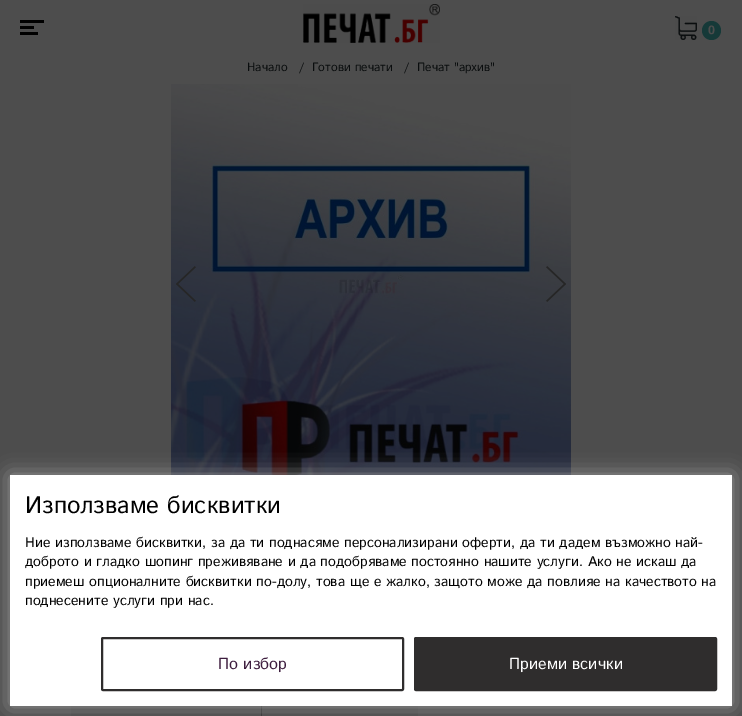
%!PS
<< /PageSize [742 716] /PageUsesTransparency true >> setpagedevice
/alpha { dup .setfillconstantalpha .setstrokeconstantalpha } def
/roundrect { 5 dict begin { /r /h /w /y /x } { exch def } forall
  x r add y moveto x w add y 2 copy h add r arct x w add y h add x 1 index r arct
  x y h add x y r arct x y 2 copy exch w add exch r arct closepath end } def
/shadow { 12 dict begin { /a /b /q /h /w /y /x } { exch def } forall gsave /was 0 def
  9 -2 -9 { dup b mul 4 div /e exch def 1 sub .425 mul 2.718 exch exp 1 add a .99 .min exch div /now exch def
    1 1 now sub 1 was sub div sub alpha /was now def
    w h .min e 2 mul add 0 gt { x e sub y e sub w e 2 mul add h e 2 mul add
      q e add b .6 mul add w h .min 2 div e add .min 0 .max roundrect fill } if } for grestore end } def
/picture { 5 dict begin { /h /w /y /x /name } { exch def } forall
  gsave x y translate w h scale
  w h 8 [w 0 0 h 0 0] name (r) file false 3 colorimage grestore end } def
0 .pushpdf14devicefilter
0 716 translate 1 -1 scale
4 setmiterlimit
0.302 setgray
0 0 742 716 rectfill
0 setgray
20 20 24 3 rectfill
20 26 14 3 rectfill
20 32 18 3 rectfill
(img1.rgb) 303 4 137 39 picture
(img2.rgb) 675 16 22 24 picture
0.082 0.224 0.22 setrgbcolor
newpath 711.5 30.5 9.5 0 360 arc closepath fill
/IstokWeb-Bold [12 0 0 -12 0 0] selectfont
0.302 setgray
708 34 moveto (0) show
/IstokWeb-Regular [12 0 0 -12 0 0] selectfont
0.039 0.051 0.055 setrgbcolor
247 71 moveto (Начало) show
299 71 moveto (/) show
312 71 moveto (Готови печати) show
404 71 moveto (/) show
417 71 moveto (Печат "архив") show
(img3.rgb) 171 84 400 391 picture
(img4.rgb) 176 266 20 36 picture
(img5.rgb) 546 266 20 36 picture
0.282 setgray
71 706 347 10 rectfill
0.188 setgray
261 706 1 10 rectfill
0.6 setgray
10 475 722 231 0 10 1 shadow
1 setgray
10 475 722 231 rectfill
/IstokWeb-Regular [24 0 0 -24 0 0] selectfont
0 setgray
25 513 moveto (Използваме бисквитки) show
/IstokWeb-Regular [14 0 0 -14 0 0] selectfont
25 547 moveto (Ние използваме бисквитки, за да ти поднасяме персонализирани оферти, да ти дадем възможно най-) show
25 566 moveto (доброто и гладко шопинг преживяване и да подобряваме постоянно нашите услуги. Ако не искаш да) show
25 586 moveto (приемеш опционалните бисквитки по-долу, това ще е жалко, защото може да повлияе на качеството на) show
25 605 moveto (поднесените услуги при нас.) show
0.184 0.176 0.176 setrgbcolor
2 setlinewidth
102 638 301 52 1 roundrect stroke
/IstokWeb-Regular [16 0 0 -16 0 0] selectfont
0.239 0.114 0.243 setrgbcolor
218 669 moveto (По избор) show
0.184 0.176 0.176 setrgbcolor
415 638 301 52 1 roundrect gsave fill grestore
stroke
1 setgray
509 669 moveto (Приеми всички) show
.poppdf14devicefilter showpage
